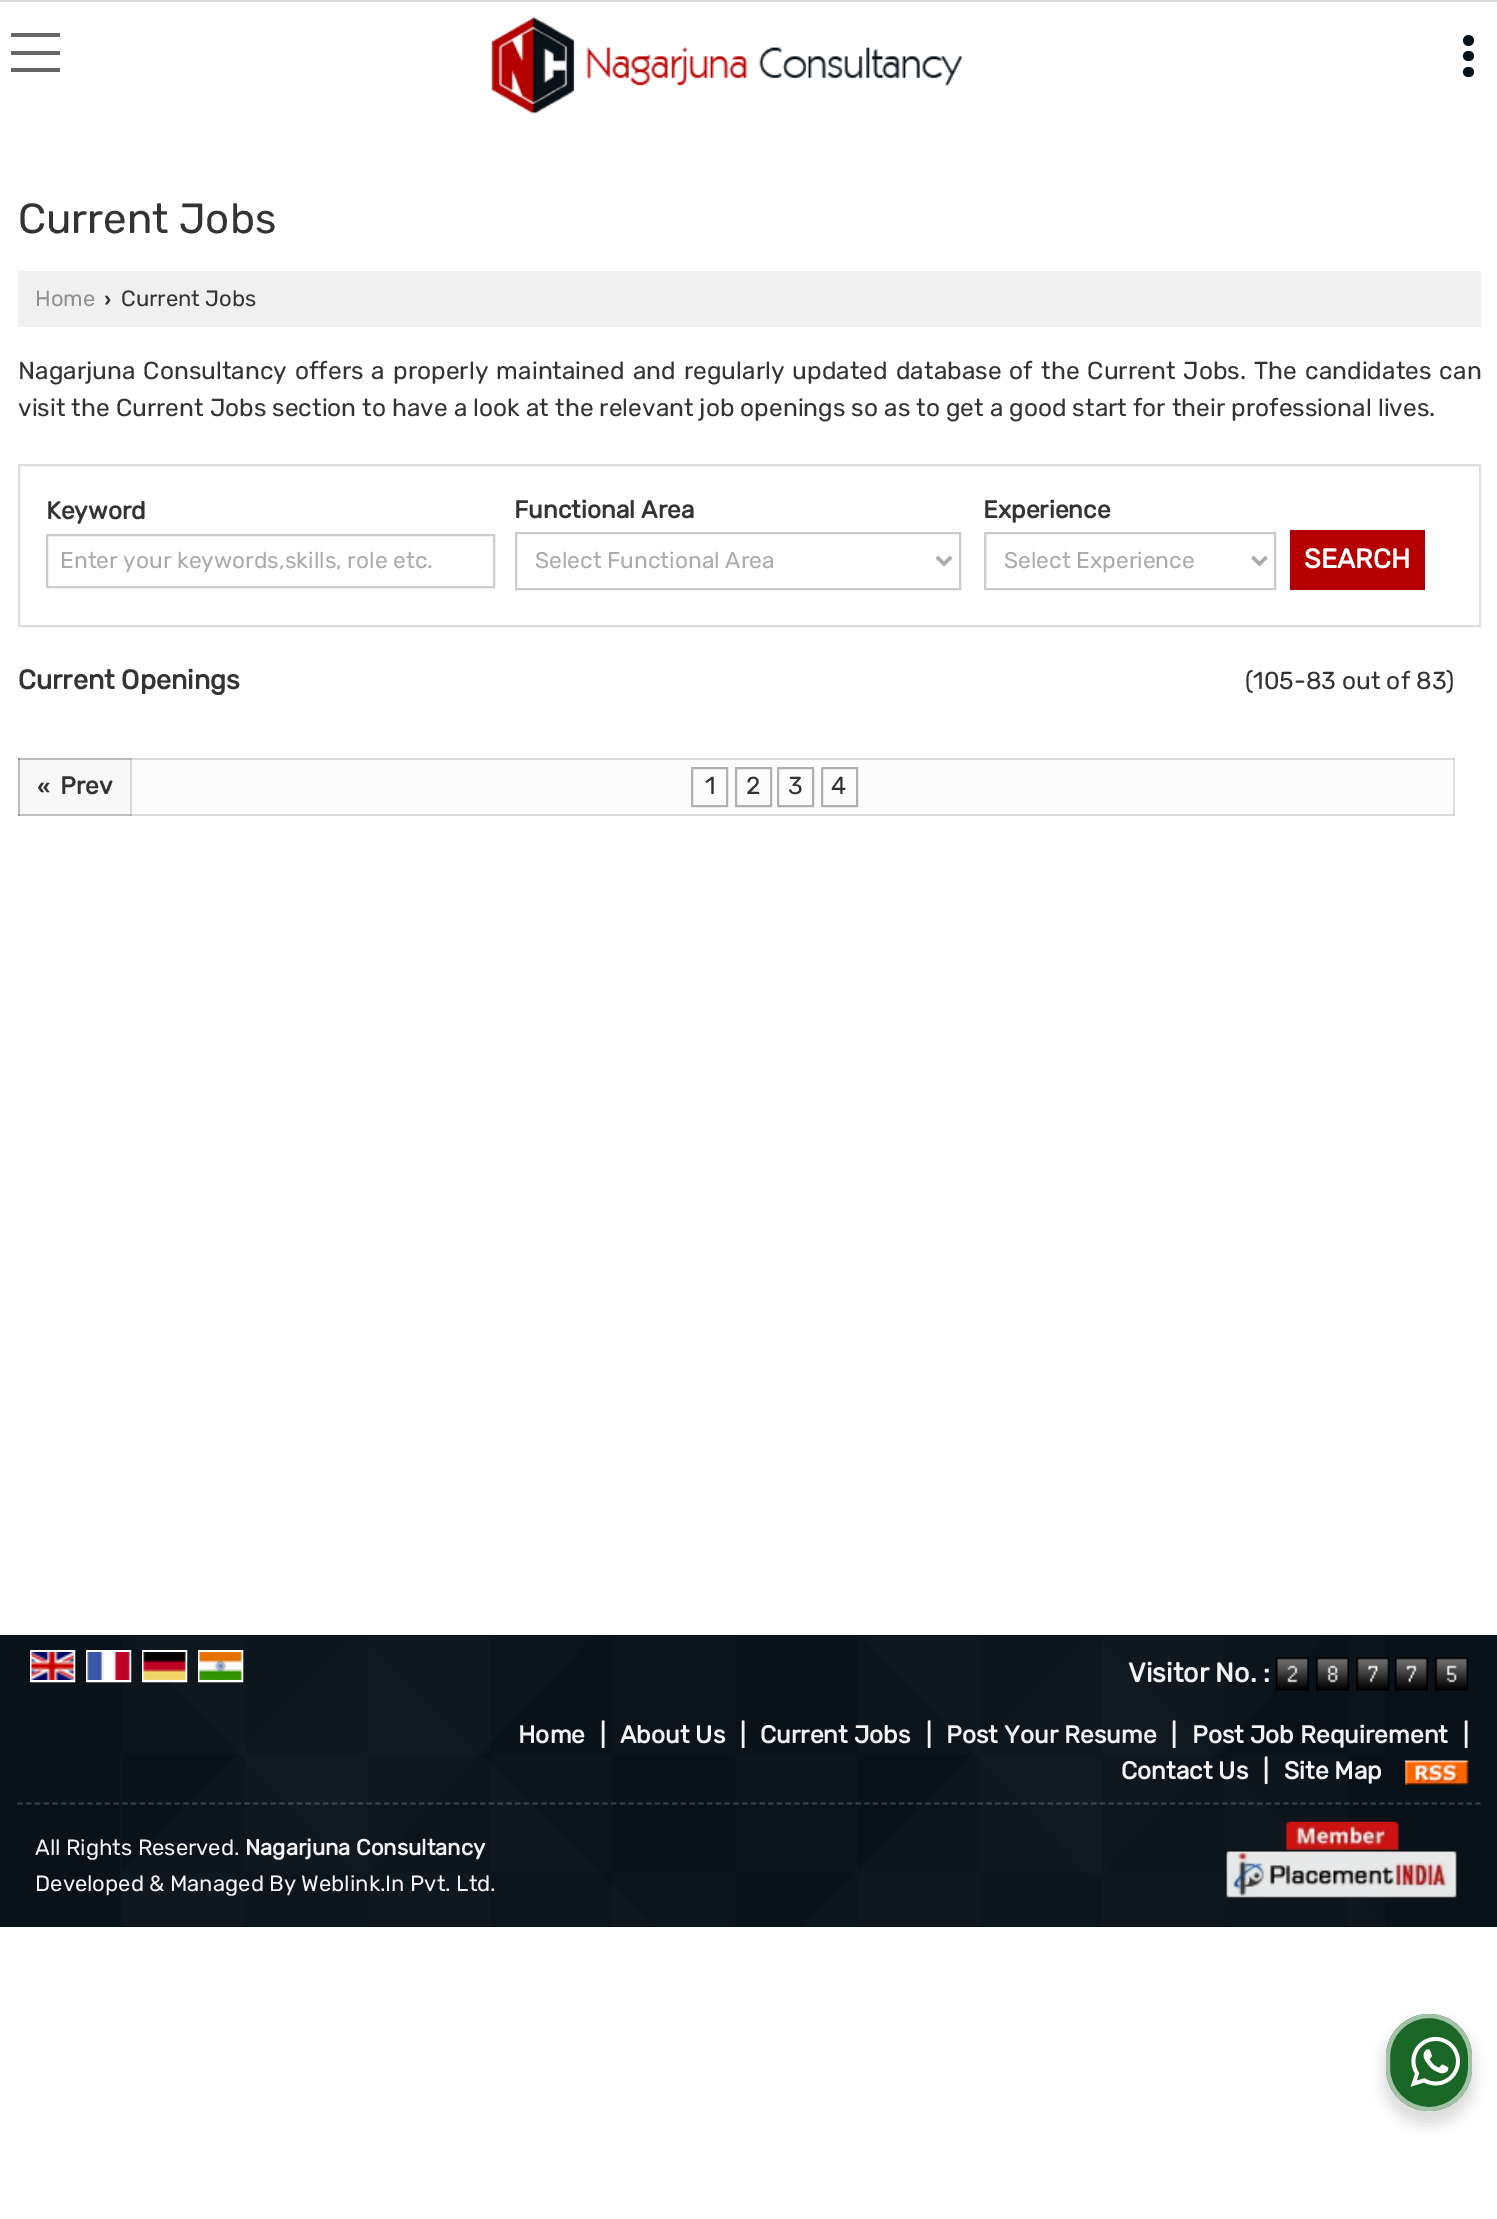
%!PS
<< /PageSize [1497 2219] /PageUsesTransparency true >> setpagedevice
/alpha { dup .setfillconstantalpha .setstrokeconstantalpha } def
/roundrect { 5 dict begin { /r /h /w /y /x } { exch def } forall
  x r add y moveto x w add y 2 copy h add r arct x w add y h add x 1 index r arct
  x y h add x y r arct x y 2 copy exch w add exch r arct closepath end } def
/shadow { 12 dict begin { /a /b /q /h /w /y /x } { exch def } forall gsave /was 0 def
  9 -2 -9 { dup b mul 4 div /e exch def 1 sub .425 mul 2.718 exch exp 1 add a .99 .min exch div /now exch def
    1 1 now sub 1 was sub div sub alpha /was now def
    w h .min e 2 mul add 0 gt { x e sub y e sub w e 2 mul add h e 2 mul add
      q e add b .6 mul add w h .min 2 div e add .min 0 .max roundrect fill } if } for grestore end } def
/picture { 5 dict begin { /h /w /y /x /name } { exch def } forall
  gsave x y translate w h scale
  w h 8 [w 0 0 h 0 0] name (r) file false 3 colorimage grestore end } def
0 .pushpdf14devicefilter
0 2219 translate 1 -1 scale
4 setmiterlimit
1 setgray
0 0 1497 2219 rectfill
0.871 setgray
1454 758 1 58 rectfill
0 0 1497 2 rectfill
0.035 0.071 0.098 setrgbcolor
1463 51 11 10 5 roundrect fill
newpath 1468.5 40.5 5.5 0 360 arc closepath fill
1463 67 11 10 5 roundrect fill
0.4 setgray
11 51 49 4 rectfill
11 33 49 4 rectfill
11 68 49 4 rectfill
(img1.rgb) 491 17 472 97 picture
/Rubik-Light [42 0 0 -42 0 0] selectfont
0.2 setgray
18 233 moveto (Current Jobs) show
0.941 setgray
18 271 1463 56 rectfill
/Rubik-Light [22.05 0 0 -22.05 0 0] selectfont
0.565 setgray
35 306 moveto (Home) show
/LiberationSans-Bold [22.05 0 0 -22.05 0 0] selectfont
0.2 setgray
104 306 moveto (›) show
/Rubik-Light [22.05 0 0 -22.05 0 0] selectfont
121 306 moveto (Current Jobs) show
/Rubik-Light [24.5 0 0 -24.5 0 0] selectfont
18 379 moveto 2.1 0 32 (Nagarjuna Consultancy offers a properly maintained and regularly updated database of the Current Jobs. The candidates can) widthshow
18 416 moveto (visit the Current Jobs section to have a look at the relevant job openings so as to get a good start for their professional lives.) show
0.871 setgray
2 setlinewidth
19 465 1461 161 rectstroke
/Rubik-Bold [24.5 0 0 -24.5 0 0] selectfont
0.2 setgray
46 519 moveto (Keyword) show
0.8 setgray
47 535 447 52 rectstroke
/Rubik-Light [22.75 0 0 -22.75 0 0] selectfont
0.667 setgray
60 568 moveto (Enter your keywords,skills, role etc.) show
/Rubik-Bold [24.5 0 0 -24.5 0 0] selectfont
0.2 setgray
514 518 moveto (Functional Area) show
0.8 setgray
516 533 444 56 rectstroke
0.667 setgray
3.5 setlinewidth
newpath 937 557 moveto 944 564 lineto 951 557 lineto stroke
/Rubik-Light [22.75 0 0 -22.75 0 0] selectfont
535 568 moveto (Select Functional Area) show
/Rubik-Bold [24.5 0 0 -24.5 0 0] selectfont
0.2 setgray
983 518 moveto (Experience) show
0.8 setgray
2 setlinewidth
985 533 290 56 rectstroke
0.667 setgray
3.5 setlinewidth
newpath 1252.5 557 moveto 1259.5 564 lineto 1266.5 557 lineto stroke
/Rubik-Light [22.75 0 0 -22.75 0 0] selectfont
1004 568 moveto (Select Experience) show
0.714 0 0 setrgbcolor
1290 530 135 60 rectfill
/Rubik-Bold [27 0 0 -27 0 0] selectfont
1 setgray
1304 568 moveto (SEARCH) show
0.2 setgray
18 689 moveto (Current Openings) show
/Rubik-Light [24.5 0 0 -24.5 0 0] selectfont
1245 689 moveto (\(105-83 out of 83\)) show
0.988 setgray
132 760 1321 54 rectfill
0.859 setgray
131 758 1 58 rectfill
0.749 setgray
18 758 1 58 rectfill
0.859 setgray
132 814 1322 2 rectfill
0.749 setgray
18 814 114 2 rectfill
0.651 setgray
130 814 1 2 rectfill
0.565 setgray
18 814 2 2 rectfill
0.859 setgray
1453 758 1 58 rectfill
0.749 setgray
1453 814 1 2 rectfill
0.859 setgray
132 758 1322 2 rectfill
0.749 setgray
130 758 2 2 rectfill
0.565 setgray
18 758 2 2 rectfill
0.749 setgray
1453 758 1 2 rectfill
0.973 setgray
20 760 110 54 rectfill
0.847 setgray
130 758 1 56 rectfill
0.737 setgray
19 758 1 56 rectfill
19 758 112 2 rectfill
0.643 setgray
130 758 1 2 rectfill
0.561 setgray
19 758 1 2 rectfill
/LiberationSans-Bold [24.5 0 0 -24.5 0 0] selectfont
0.2 setgray
37 794 moveto («) show
/Rubik-Bold [24.5 0 0 -24.5 0 0] selectfont
60 794 moveto (Prev) show
0.69 setgray
2 setlinewidth
692 768 35 38 rectstroke
/Rubik-Light [24.5 0 0 -24.5 0 0] selectfont
0.2 setgray
705 794 moveto (1) show
0.69 setgray
736 768 35 38 rectstroke
0.2 setgray
746 794 moveto (2) show
0.69 setgray
778 768 35 38 rectstroke
0.2 setgray
788 794 moveto (3) show
0.69 setgray
822 768 35 38 rectstroke
0.2 setgray
831 794 moveto (4) show
0.035 0.071 0.098 setrgbcolor
0 1635 1497 292 rectfill
(img2.rgb) 120 1635 1265 291 picture
1 setgray
31 1651 43 30 rectstroke
87 1651 43 30 rectstroke
143 1651 43 30 rectstroke
199 1651 43 30 rectstroke
(img3.rgb) 31 1652 43 28 picture
(img4.rgb) 87 1652 43 28 picture
(img5.rgb) 143 1652 43 28 picture
(img6.rgb) 199 1652 43 28 picture
/Rubik-Bold [27 0 0 -27 0 0] selectfont
0.953 0.953 0.957 setrgbcolor
1128 1682 moveto (Visitor No. :) show
(img7.rgb) 1275 1657 34 34 picture
(img8.rgb) 1316 1657 34 34 picture
(img9.rgb) 1356 1657 34 34 picture
(img10.rgb) 1394 1657 34 34 picture
(img11.rgb) 1435 1657 34 34 picture
/Rubik-Bold [24.5 0 0 -24.5 0 0] selectfont
518 1743 moveto (Home) show
600 1743 moveto (|) show
620 1743 moveto (About Us) show
740 1743 moveto (|) show
760 1743 moveto (Current Jobs) show
926 1743 moveto (|) show
946 1743 moveto (Post Your Resume) show
1171 1743 moveto (|) show
1192 1743 moveto (Post Job Requirement) show
1463 1743 moveto (|) show
1121 1779 moveto (Contact Us) show
1263 1779 moveto (|) show
1284 1779 moveto (Site Map) show
(img12.rgb) 1405 1760 64 25 picture
0.2 alpha
1 setgray
1.8 setlinewidth
[5.25 3.48] 0 setdash
newpath 17.5 1803.5 moveto 1480.5 1803.5 lineto stroke
/Rubik-Light [22.05 0 0 -22.05 0 0] selectfont
1 alpha
0.953 0.953 0.957 setrgbcolor
35 1855 moveto (All Rights Reserved.) show
/Rubik-Bold [22.05 0 0 -22.05 0 0] selectfont
245 1855 moveto (Nagarjuna Consultancy) show
/Rubik-Light [22.05 0 0 -22.05 0 0] selectfont
35 1891 moveto (Developed & Managed By Weblink.In Pvt. Ltd.) show
(img13.rgb) 1225 1821 232 78 picture
0 setgray
1383 2021 92 104 46 7 0.14 shadow
0.098 0.4 0.149 setrgbcolor
1386 2014 86 97 43 roundrect fill
0.6 alpha
1 setgray
4 setlinewidth
[] 0 setdash
1388 2016 82 93 41 roundrect stroke
1 alpha
(img14.rgb) 1410 2036 50 51 picture
.poppdf14devicefilter showpage
